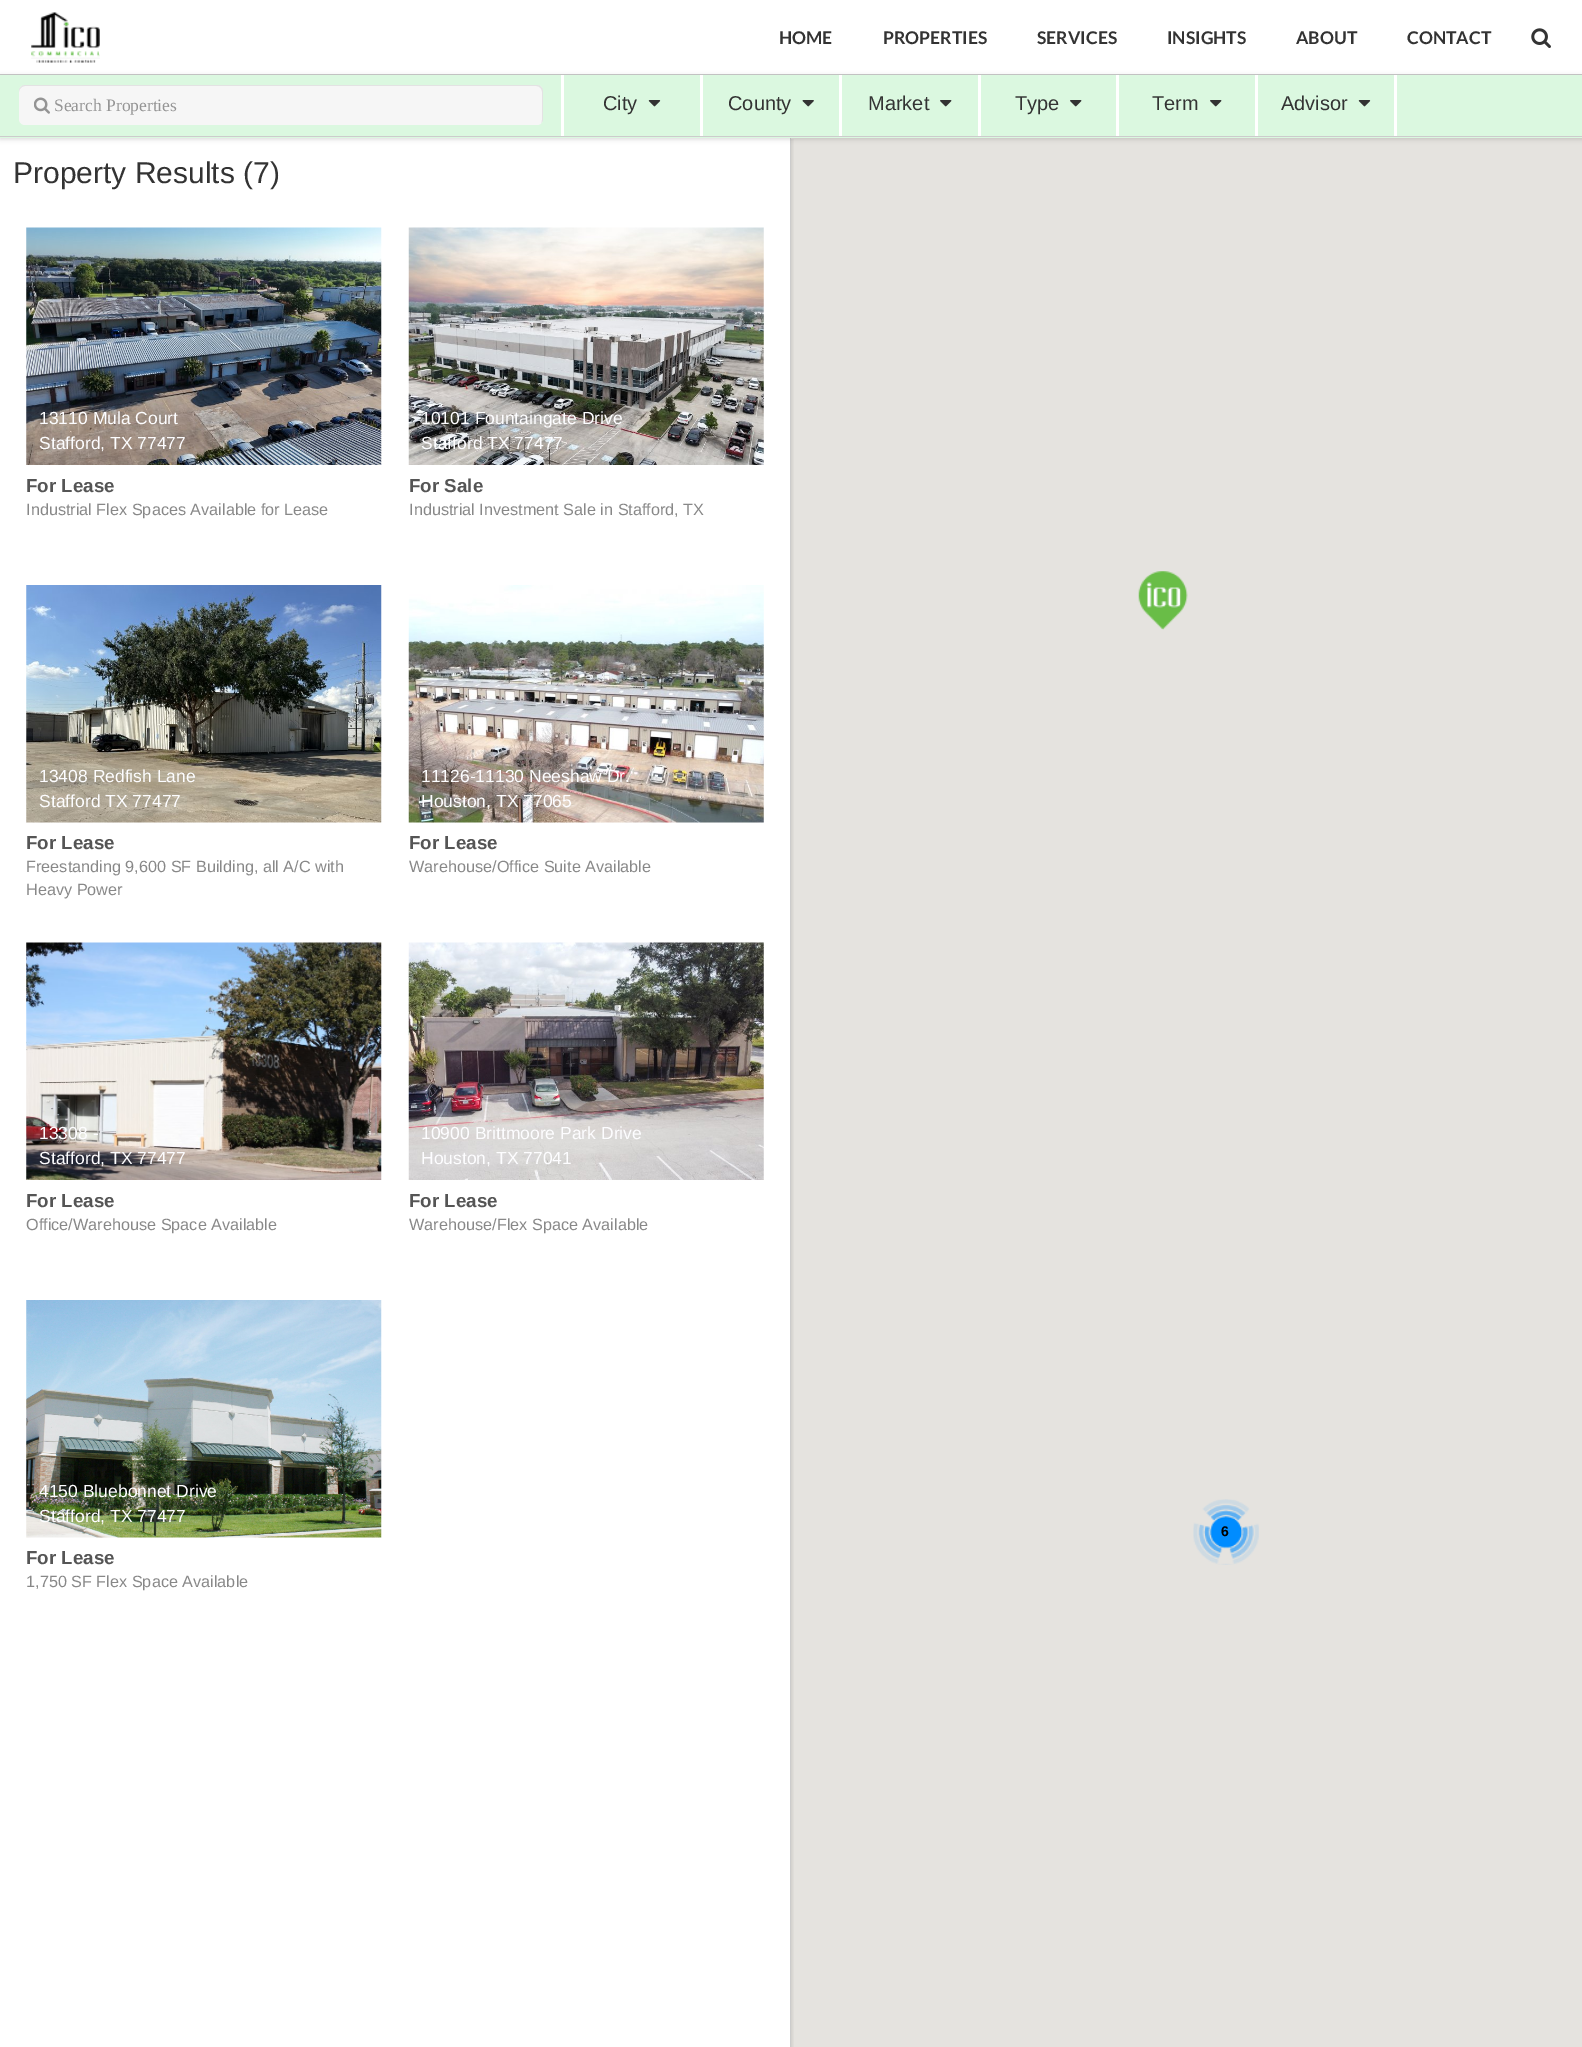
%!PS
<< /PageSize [1582 2047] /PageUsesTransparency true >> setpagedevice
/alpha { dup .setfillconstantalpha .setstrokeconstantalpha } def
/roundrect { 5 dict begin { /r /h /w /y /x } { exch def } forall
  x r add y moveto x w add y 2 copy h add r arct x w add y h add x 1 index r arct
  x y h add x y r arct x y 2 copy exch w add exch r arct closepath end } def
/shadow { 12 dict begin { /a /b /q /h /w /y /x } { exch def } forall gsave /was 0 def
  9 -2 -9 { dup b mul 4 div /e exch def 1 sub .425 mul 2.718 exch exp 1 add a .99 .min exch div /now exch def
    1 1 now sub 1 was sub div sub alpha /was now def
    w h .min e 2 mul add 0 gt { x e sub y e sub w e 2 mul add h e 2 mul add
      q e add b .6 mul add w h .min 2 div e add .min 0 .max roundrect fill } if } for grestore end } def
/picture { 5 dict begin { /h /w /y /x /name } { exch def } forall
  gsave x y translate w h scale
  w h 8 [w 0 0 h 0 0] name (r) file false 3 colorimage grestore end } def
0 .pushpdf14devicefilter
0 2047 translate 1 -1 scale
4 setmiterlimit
1 setgray
0 0 1582 2047 rectfill
0.8 setgray
0 74 1582 1 rectfill
(img1.rgb) 31 12 69 51 picture
/Lato-Bold [17.5 0 0 -17.5 0 0] selectfont
0.2 setgray
779 44 moveto (HOME) show
883 44 moveto (PROPERTIES) show
1037 44 moveto (SERVICES) show
1167 44 moveto (INSIGHTS) show
1296 44 moveto (ABOUT) show
1407 44 moveto (CONTACT) show
(img2.rgb) 1531 28 20 20 picture
0.898 0.89 0.875 setrgbcolor
791 138 791 1909 rectfill
gsave
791 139 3 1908 rectclip
0 setgray
0 139 791 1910 0 2.5 0.15 shadow
grestore
0.8 setgray
790 138 1 1909 rectfill
0 setgray
0 76 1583 63 0 2.5 0.15 shadow
0.859 0.973 0.878 setrgbcolor
0 75 1582 63 rectfill
0.8 setgray
0 136 1582 1 rectfill
1 setgray
561 75 3 61 rectfill
0.965 setgray
19 85 524 40 6 roundrect fill
0.08 alpha
0 setgray
newpath 25 86 moveto 536 86 lineto 540 86 542 89 542 92 curveto 542 120 lineto 542 121 542 122 541 123 curveto 542 122 543 121 543 119 curveto 543 91 lineto 543 88 540 85 537 85 curveto 25 85 lineto 22 85 19 88 19 91 curveto 19 92 lineto 19 89 22 86 25 86 curveto closepath fill
1 alpha
(img3.rgb) 34 97 16 17 picture
/LiberationSerif-Regular [17.5 0 0 -17.5 0 0] selectfont
0.584 setgray
54 111 moveto (Search Properties) show
1 setgray
700 75 3 61 rectfill
/LiberationSans-Regular [20 0 0 -20 0 0] selectfont
0.2 setgray
603 110 moveto (City) show
(img4.rgb) 648 100 13 7 picture
1 setgray
839 75 3 61 rectfill
0.2 setgray
728 110 moveto (County) show
(img5.rgb) 802 100 12 7 picture
1 setgray
978 75 3 61 rectfill
0.2 setgray
868 110 moveto (Market) show
(img6.rgb) 940 100 12 7 picture
1 setgray
1116 75 3 61 rectfill
0.2 setgray
1015 110 moveto (Type) show
(img6.rgb) 1070 100 12 7 picture
1 setgray
1255 75 3 61 rectfill
0.2 setgray
1152 110 moveto (Term) show
(img6.rgb) 1210 100 12 7 picture
1 setgray
1394 75 3 61 rectfill
0.2 setgray
1281 110 moveto (Advisor) show
(img4.rgb) 1358 100 13 7 picture
/LiberationSans-Regular [30 0 0 -30 0 0] selectfont
13 183 moveto (Property Results \(7\)) show
(img7.rgb) 26 227 356 238 picture
/LiberationSans-Regular [17.5 0 0 -17.5 0 0] selectfont
0.992 0.992 1 setrgbcolor
39 424 moveto (13110 Mula Court) show
39 449 moveto (Stafford, TX 77477) show
/LiberationSans-Bold [18.75 0 0 -18.75 0 0] selectfont
0.333 setgray
26 492 moveto (For Lease) show
/LiberationSans-Regular [16.25 0 0 -16.25 0 0] selectfont
0.533 setgray
26 515 moveto (Industrial Flex Spaces Available for Lease) show
(img8.rgb) 408 227 356 238 picture
/LiberationSans-Regular [17.5 0 0 -17.5 0 0] selectfont
0.992 0.992 1 setrgbcolor
421 424 moveto (10101 Fountaingate Drive) show
421 449 moveto (Stafford TX 77477) show
/LiberationSans-Bold [18.75 0 0 -18.75 0 0] selectfont
0.333 setgray
409 492 moveto (For Sale) show
/LiberationSans-Regular [16.25 0 0 -16.25 0 0] selectfont
0.533 setgray
409 515 moveto (Industrial Investment Sale in Stafford, TX) show
(img9.rgb) 26 585 356 238 picture
/LiberationSans-Regular [17.5 0 0 -17.5 0 0] selectfont
0.992 0.992 1 setrgbcolor
39 782 moveto (13408 Redfish Lane) show
39 807 moveto (Stafford TX 77477) show
/LiberationSans-Bold [18.75 0 0 -18.75 0 0] selectfont
0.333 setgray
26 849 moveto (For Lease) show
/LiberationSans-Regular [16.25 0 0 -16.25 0 0] selectfont
0.533 setgray
26 872 moveto (Freestanding 9,600 SF Building, all A/C with) show
26 895 moveto (Heavy Power) show
(img10.rgb) 408 585 356 238 picture
/LiberationSans-Regular [17.5 0 0 -17.5 0 0] selectfont
0.992 0.992 1 setrgbcolor
421 782 moveto (11126-11130 Neeshaw Dr.) show
421 807 moveto (Houston, TX 77065) show
/LiberationSans-Bold [18.75 0 0 -18.75 0 0] selectfont
0.333 setgray
409 849 moveto (For Lease) show
/LiberationSans-Regular [16.25 0 0 -16.25 0 0] selectfont
0.533 setgray
409 872 moveto (Warehouse/Office Suite Available) show
(img11.rgb) 26 942 356 238 picture
/LiberationSans-Regular [17.5 0 0 -17.5 0 0] selectfont
0.992 0.992 1 setrgbcolor
39 1139 moveto (13308 -) show
39 1164 moveto (Stafford, TX 77477) show
/LiberationSans-Bold [18.75 0 0 -18.75 0 0] selectfont
0.333 setgray
26 1207 moveto (For Lease) show
/LiberationSans-Regular [16.25 0 0 -16.25 0 0] selectfont
0.533 setgray
26 1230 moveto (Office/Warehouse Space Available) show
(img12.rgb) 408 942 356 238 picture
/LiberationSans-Regular [17.5 0 0 -17.5 0 0] selectfont
0.992 0.992 1 setrgbcolor
421 1139 moveto (10900 Brittmoore Park Drive) show
421 1164 moveto (Houston, TX 77041) show
/LiberationSans-Bold [18.75 0 0 -18.75 0 0] selectfont
0.333 setgray
409 1207 moveto (For Lease) show
/LiberationSans-Regular [16.25 0 0 -16.25 0 0] selectfont
0.533 setgray
409 1230 moveto (Warehouse/Flex Space Available) show
(img13.rgb) 26 1300 356 238 picture
/LiberationSans-Regular [17.5 0 0 -17.5 0 0] selectfont
0.992 0.992 1 setrgbcolor
39 1497 moveto (4150 Bluebonnet Drive) show
39 1522 moveto (Stafford, TX 77477) show
/LiberationSans-Bold [18.75 0 0 -18.75 0 0] selectfont
0.333 setgray
26 1564 moveto (For Lease) show
/LiberationSans-Regular [16.25 0 0 -16.25 0 0] selectfont
0.533 setgray
26 1587 moveto (1,750 SF Flex Space Available) show
(img14.rgb) 1138 571 50 59 picture
(img15.rgb) 1193 1499 66 66 picture
/LiberationSans-Bold [14 0 0 -14 0 0] selectfont
0 setgray
1221 1536 moveto (6) show
.poppdf14devicefilter showpage
